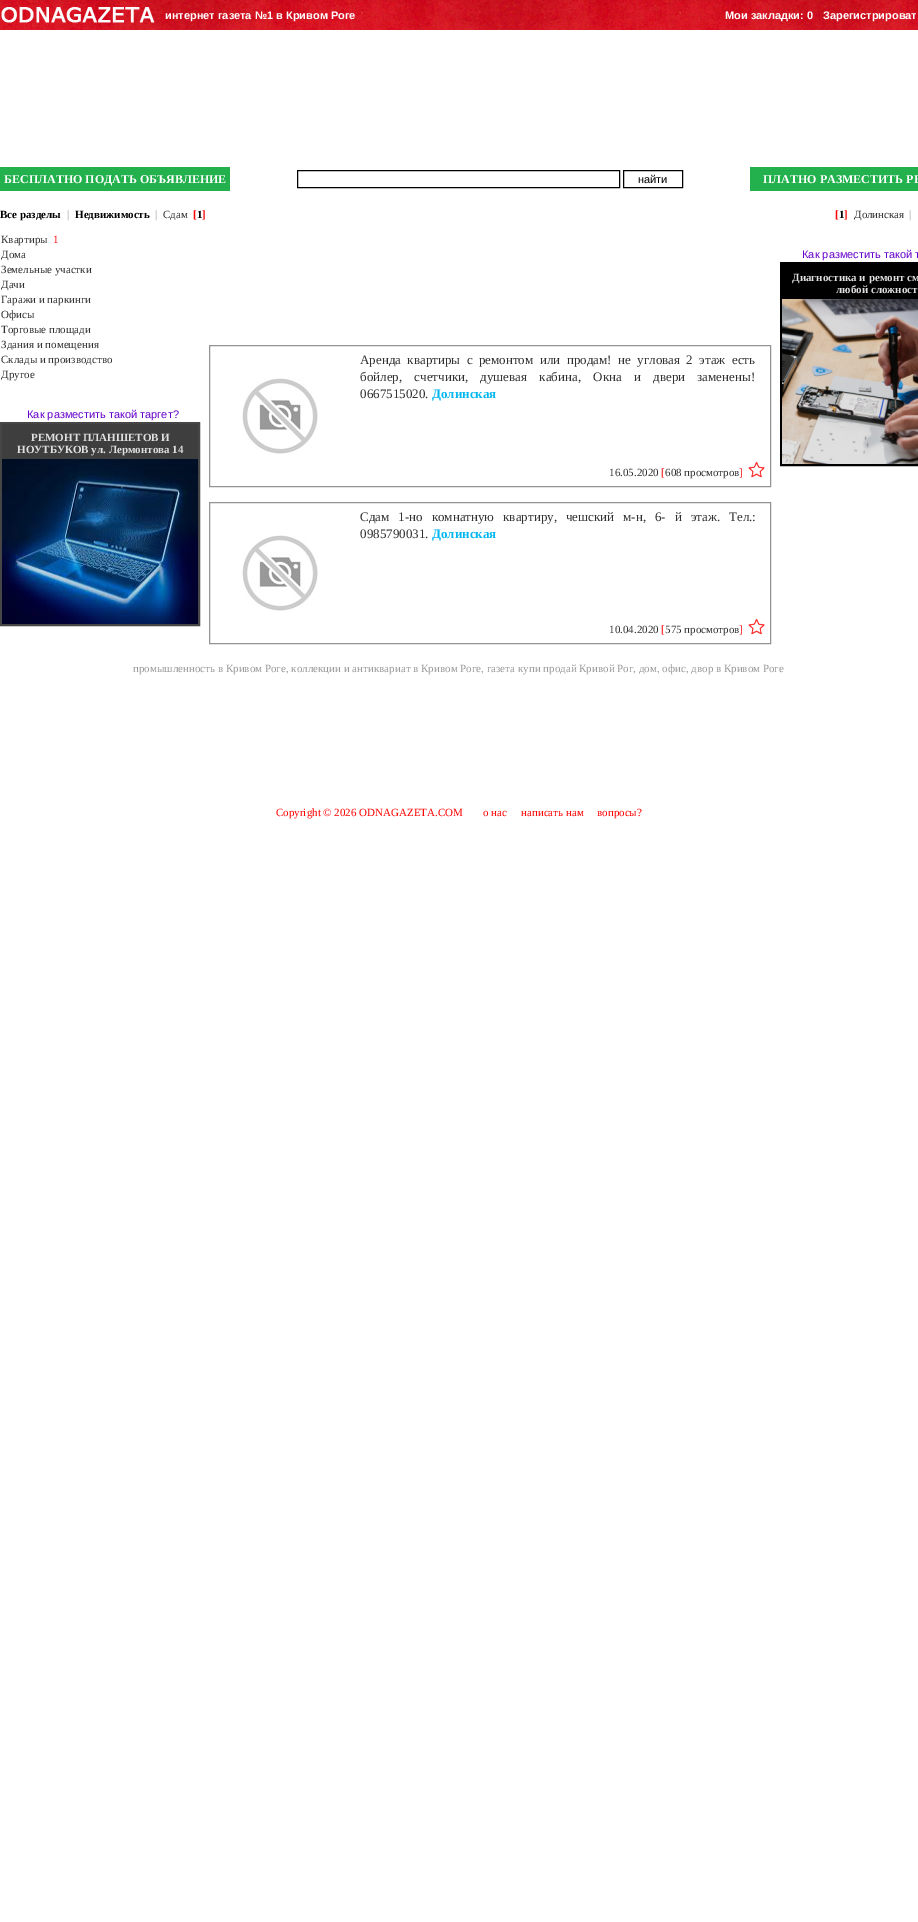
%!PS
<< /PageSize [918 1922] >> setpagedevice
/picture { 5 dict begin { /h /w /y /x /name } { exch def } forall
  gsave x y translate w h scale
  w h 8 [w 0 0 h 0 0] name (r) file false 3 colorimage grestore end } def
0 1922 translate 1 -1 scale
4 setmiterlimit
1 setgray
0 0 918 1922 rectfill
(img1.rgb) 0 0 918 30 picture
(img2.rgb) 1 7 154 16 picture
/LiberationSans-Bold [11 0 0 -11 0 0] selectfont
165 19 moveto (интернет газета №1 в Кривом Роге) show
725 19 moveto (Мои закладки: 0) show
823 19 moveto (Зарегистрироват) show
0.133 0.694 0.298 setrgbcolor
0 167 230 24 rectfill
/LiberationSerif-Bold [12 0 0 -12 0 0] selectfont
1 setgray
4 183 moveto (БЕСПЛАТНО ПОДАТЬ ОБЪЯВЛЕНИЕ) show
0 setgray
297.5 170.5 322 17 rectstroke
623.5 170.5 59 17 rectstroke
/LiberationSans-Regular [11 0 0 -11 0 0] selectfont
638 183 moveto (найти) show
0.133 0.694 0.298 setrgbcolor
750 167 168 24 rectfill
/LiberationSerif-Bold [12 0 0 -12 0 0] selectfont
1 setgray
763 183 moveto (ПЛАТНО РАЗМЕСТИТЬ РЕ) show
/LiberationSerif-Bold [11 0 0 -11 0 0] selectfont
0 setgray
0 218 moveto (Все разделы) show
0.714 setgray
67 218 moveto (|) show
0 setgray
75 218 moveto (Недвижимость) show
0.714 setgray
155 218 moveto (|) show
/LiberationSerif-Regular [11 0 0 -11 0 0] selectfont
0.192 setgray
163 218 moveto (Сдам) show
/LiberationSerif-Bold [11 0 0 -11 0 0] selectfont
1 0 0 setrgbcolor
193 218 moveto ([) show
0 setgray
197 218 moveto (1) show
1 0 0 setrgbcolor
202 218 moveto (]) show
835 218 moveto ([) show
0 setgray
839 218 moveto (1) show
1 0 0 setrgbcolor
844 218 moveto (]) show
/LiberationSerif-Regular [11 0 0 -11 0 0] selectfont
0.192 setgray
854 218 moveto (Долинская) show
/LiberationSerif-Bold [11 0 0 -11 0 0] selectfont
0.714 setgray
909 218 moveto (|) show
/LiberationSerif-Regular [11 0 0 -11 0 0] selectfont
0.192 setgray
1 243 moveto (Квартиры) show
1 0 0 setrgbcolor
53 243 moveto (1) show
0.192 setgray
1 258 moveto (Дома) show
1 273 moveto (Земельные участки) show
1 288 moveto (Дачи) show
1 303 moveto (Гаражи и паркинги) show
1 318 moveto (Офисы) show
1 333 moveto (Торговые площади) show
1 348 moveto (Здания и помещения) show
1 363 moveto (Склады и производство) show
1 378 moveto (Другое) show
/LiberationSans-Regular [11 0 0 -11 0 0] selectfont
0.4 0 0.8 setrgbcolor
27 418 moveto (Как разместить такой таргет?) show
0.275 setgray
2 setlinewidth
1 423 198 202 rectstroke
0.243 setgray
2 424 196 35 rectfill
/LiberationSerif-Bold [11 0 0 -11 0 0] selectfont
0.878 setgray
31 441 moveto (РЕМОНТ ПЛАНШЕТОВ И) show
17 453 moveto (НОУТБУКОВ ул. Лермонтова 14) show
(img3.rgb) 2 459 196 165 picture
/LiberationSans-Regular [11 0 0 -11 0 0] selectfont
0.4 0 0.8 setrgbcolor
802 258 moveto (Как разместить такой т) show
0 setgray
781 263 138 202 rectstroke
782 264 136 35 rectfill
/LiberationSerif-Bold [11 0 0 -11 0 0] selectfont
0.878 setgray
792 281 moveto (Диагностика и ремонт см) show
836 293 moveto (любой сложност) show
(img4.rgb) 782 299 136 165 picture
0.58 setgray
1 setlinewidth
209.5 345.5 561 141 rectstroke
(img5.rgb) 242 378 76 76 picture
/LiberationSerif-Regular [13 0 0 -13 0 0] selectfont
0.192 setgray
360 364 moveto 3.25 0 32 (Аренда квартиры с ремонтом или продам! не угловая 2 этаж есть) widthshow
360 381 moveto 9 0 32 (бойлер, счетчики, душевая кабина, Окна и двери заменены!) widthshow
360 398 moveto (0667515020.) show
/LiberationSerif-Bold [13 0 0 -13 0 0] selectfont
0 0.714 0.937 setrgbcolor
432 398 moveto (Долинская) show
/LiberationSerif-Regular [11 0 0 -11 0 0] selectfont
0.192 setgray
609 476 moveto (16.05.2020) show
1 0 0 setrgbcolor
661 476 moveto ([) show
0.192 setgray
665 476 moveto (608 просмотров) show
1 0 0 setrgbcolor
739 476 moveto (]) show
(img6.rgb) 748 462 17 16 picture
0.58 setgray
209.5 502.5 561 141 rectstroke
/LiberationSerif-Regular [13 0 0 -13 0 0] selectfont
0.192 setgray
360 521 moveto 5.75 0 32 (Сдам 1-но комнатную квартиру, чешский м-н, 6- й этаж. Тел.:) widthshow
360 538 moveto (0985790031.) show
/LiberationSerif-Bold [13 0 0 -13 0 0] selectfont
0 0.714 0.937 setrgbcolor
432 538 moveto (Долинская) show
(img5.rgb) 242 535 76 76 picture
/LiberationSerif-Regular [11 0 0 -11 0 0] selectfont
0.192 setgray
609 633 moveto (10.04.2020) show
1 0 0 setrgbcolor
661 633 moveto ([) show
0.192 setgray
665 633 moveto (575 просмотров) show
1 0 0 setrgbcolor
739 633 moveto (]) show
(img6.rgb) 748 619 17 16 picture
0.604 setgray
133 672 moveto (промышленность в Кривом Роге, коллекции и антиквариат в Кривом Роге, газета купи продай Кривой Рог, дом, офис, двор в Кривом Роге) show
1 0 0 setrgbcolor
276 816 moveto (Copyright © 2026 ODNAGAZETA.COM) show
483 816 moveto (о нас) show
521 816 moveto (написать нам) show
597 816 moveto (вопросы?) show
showpage
